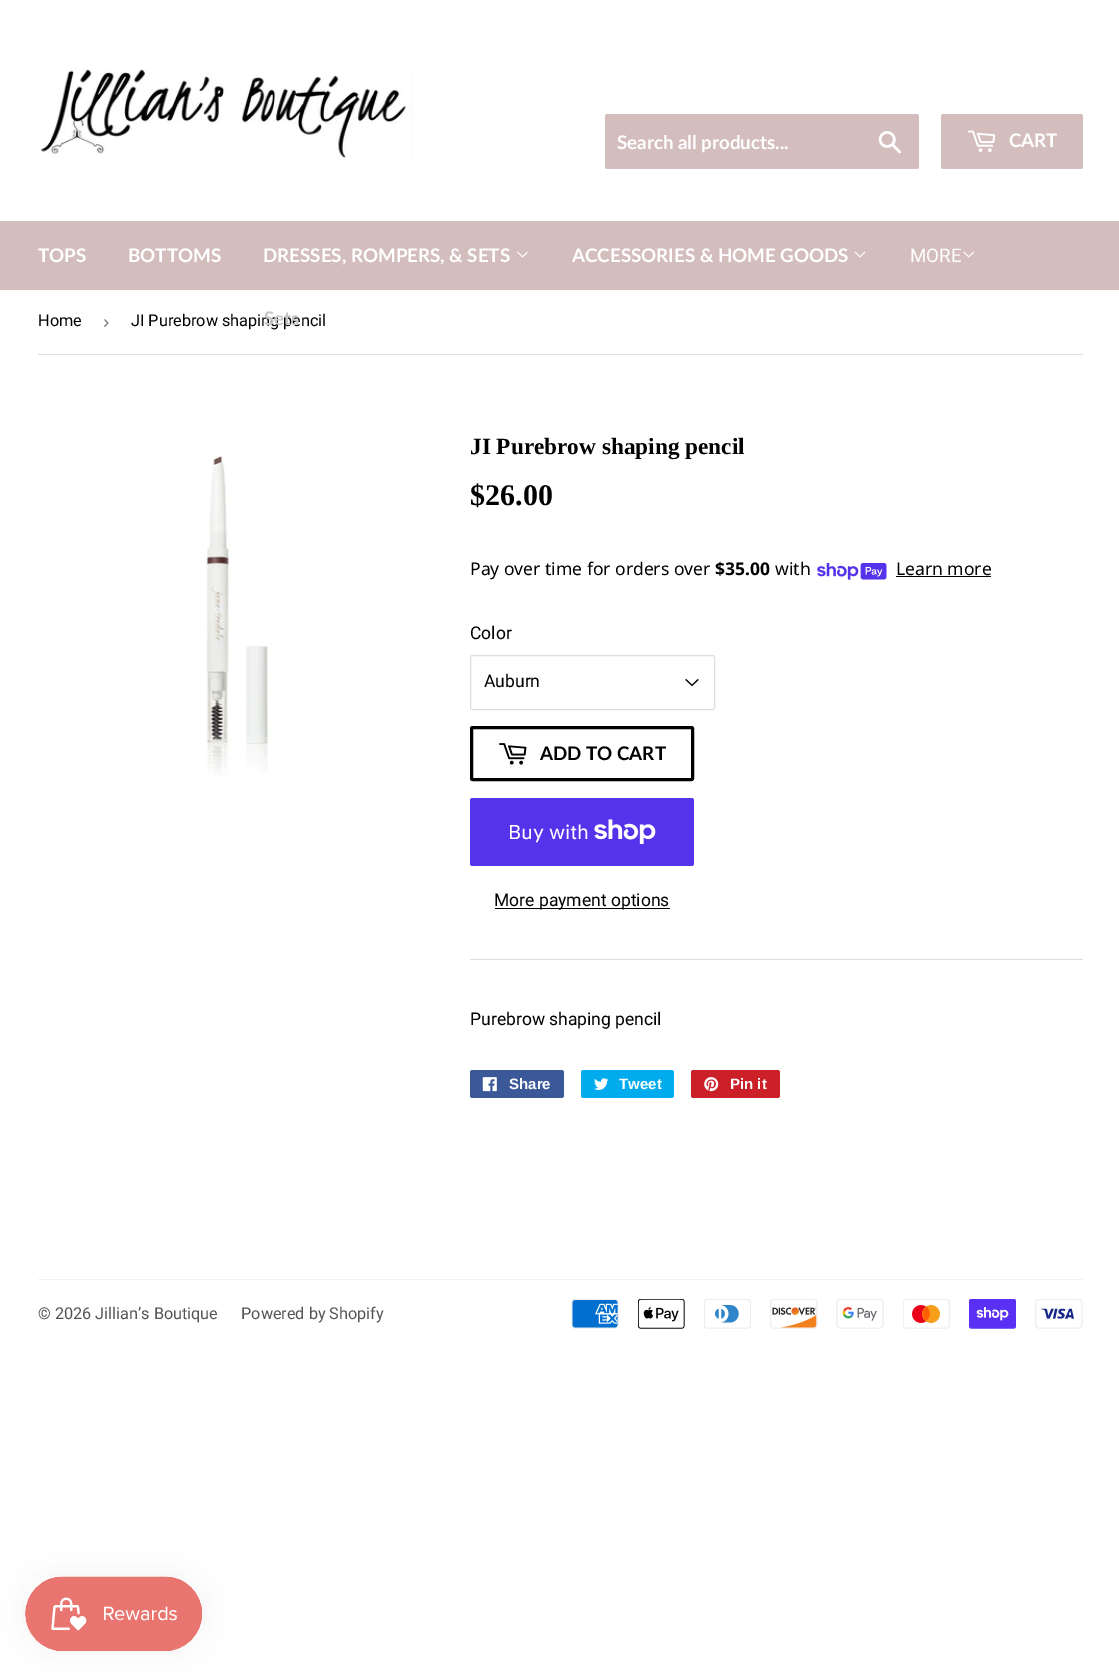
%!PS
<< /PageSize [1119 1676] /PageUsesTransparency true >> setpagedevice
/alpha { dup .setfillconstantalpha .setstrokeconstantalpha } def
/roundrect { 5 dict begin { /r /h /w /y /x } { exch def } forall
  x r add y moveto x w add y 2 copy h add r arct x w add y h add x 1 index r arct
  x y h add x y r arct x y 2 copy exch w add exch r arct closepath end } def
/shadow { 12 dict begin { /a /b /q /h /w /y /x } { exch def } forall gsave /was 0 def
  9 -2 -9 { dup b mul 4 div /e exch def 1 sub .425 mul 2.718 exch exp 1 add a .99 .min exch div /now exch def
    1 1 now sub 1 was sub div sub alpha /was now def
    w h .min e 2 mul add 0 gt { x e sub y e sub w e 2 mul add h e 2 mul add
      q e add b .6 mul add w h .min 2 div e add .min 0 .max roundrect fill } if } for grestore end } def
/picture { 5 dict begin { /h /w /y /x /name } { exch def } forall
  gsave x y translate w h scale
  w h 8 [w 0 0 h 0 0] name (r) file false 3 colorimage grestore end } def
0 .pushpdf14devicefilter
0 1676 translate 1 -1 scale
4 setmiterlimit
1 setgray
0 0 1119 1676 rectfill
(img1.rgb) 40 69 373 89 picture
0.831 0.741 0.741 setrgbcolor
605 114 314 55 2.5 roundrect fill
/Lato-Bold [18.75 0 0 -18.75 0 0] selectfont
1 setgray
617 149 moveto (Search all products...) show
(img2.rgb) 878 131 24 23 picture
0.831 0.741 0.741 setrgbcolor
941 114 142 55 2.5 roundrect fill
(img3.rgb) 967 130 29 22 picture
1 setgray
1009 147 moveto (CART) show
0.831 0.741 0.741 setrgbcolor
0 221 1119 69 rectfill
1 setgray
38 262 moveto (TOPS) show
128 262 moveto (BOTTOMS) show
263 262 moveto (DRESSES, ROMPERS, & SETS) show
(img4.rgb) 517 251 11 7 picture
/Roboto-Regular [16.25 0 0 -16.25 0 0] selectfont
0 setgray
131 326 moveto (JI Purebrow shaping pencil) show
/Lato-Bold [18.75 0 0 -18.75 0 0] selectfont
0.78 setgray
264 325 moveto (Sets) show
1 setgray
572 262 moveto (ACCESSORIES & HOME GOODS) show
(img5.rgb) 854 251 12 7 picture
/Roboto-Regular [18.75 0 0 -18.75 0 0] selectfont
910 262 moveto (MORE) show
(img6.rgb) 963 251 11 7 picture
0.871 setgray
38 354 1045 1 rectfill
/Roboto-Regular [16.25 0 0 -16.25 0 0] selectfont
0 setgray
38 326 moveto (Home) show
/LiberationSans-Regular [18.75 0 0 -18.75 0 0] selectfont
0.463 setgray
103 328 moveto (›) show
(img7.rgb) 206 455 63 320 picture
/LiberationSerif-Bold [23.25 0 0 -23.25 0 0] selectfont
0 setgray
470 454 moveto (JI Purebrow shaping pencil) show
/LiberationSerif-Bold [30 0 0 -30 0 0] selectfont
470 505 moveto ($26.00) show
/NotoSans-Regular [17.5 0 0 -17.5 0 0] selectfont
470 575 moveto (Pay over time for orders over) show
/NotoSans-Bold [17.5 0 0 -17.5 0 0] selectfont
715 575 moveto ($35.00) show
/NotoSans-Regular [17.5 0 0 -17.5 0 0] selectfont
775 575 moveto (with) show
(img8.rgb) 817 563 70 17 picture
896 575 moveto (Learn more) show
896 576 95 1 rectfill
/Roboto-Regular [17.5 0 0 -17.5 0 0] selectfont
470 639 moveto (Color) show
(img9.rgb) 685 678 14 9 picture
0.871 setgray
470.5 655.5 244 54 2 roundrect stroke
0 setgray
484 687 moveto (Auburn) show
3 setlinewidth
471.5 727.5 221 52 1 roundrect stroke
(img10.rgb) 499 743 28 22 picture
/Lato-Bold [18.75 0 0 -18.75 0 0] selectfont
540 760 moveto (ADD TO CART) show
0.329 0.2 0.922 setrgbcolor
470 798 224 68 2.5 roundrect fill
/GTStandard-Regular [20 0 0 -20 0 0] selectfont
1 setgray
508 839 moveto (Buy with) show
(img11.rgb) 594 819 62 25 picture
0 setgray
495 908 175 1 rectfill
/Roboto-Regular [17.5 0 0 -17.5 0 0] selectfont
494 906 moveto (More payment options) show
0.871 setgray
470 959 613 1 rectfill
0 setgray
470 1025 moveto (Purebrow shaping pencil) show
0.231 0.349 0.596 setrgbcolor
470 1070 94 28 2.5 roundrect fill
(img12.rgb) 482 1077 15 15 picture
/LiberationSans-Bold [15 0 0 -15 0 0] selectfont
1 setgray
509 1089 moveto (Share) show
0 0.675 0.929 setrgbcolor
581 1070 93 28 2.5 roundrect fill
(img13.rgb) 594 1078 15 12 picture
1 setgray
619 1089 moveto (Tweet) show
0.796 0.125 0.153 setrgbcolor
691 1070 89 28 2.5 roundrect fill
(img14.rgb) 704 1077 15 15 picture
1 setgray
730 1089 moveto (Pin it) show
0.949 setgray
38 1279 1045 1 rectfill
/Roboto-Regular [16.25 0 0 -16.25 0 0] selectfont
0.329 setgray
38 1319 moveto (© 2026 Jillian’s Boutique) show
241 1319 moveto (Powered by Shopify) show
(img15.rgb) 571 1299 48 30 picture
(img16.rgb) 638 1299 47 30 picture
(img17.rgb) 704 1299 47 30 picture
(img18.rgb) 770 1299 48 30 picture
(img19.rgb) 836 1299 48 30 picture
(img20.rgb) 903 1299 47 30 picture
(img21.rgb) 969 1299 47 30 picture
(img22.rgb) 1035 1299 48 30 picture
0 setgray
25 1576 178 75 37.5 15.5 0.05 shadow
(img23.rgb) 25 1576 178 75 picture
.poppdf14devicefilter showpage
